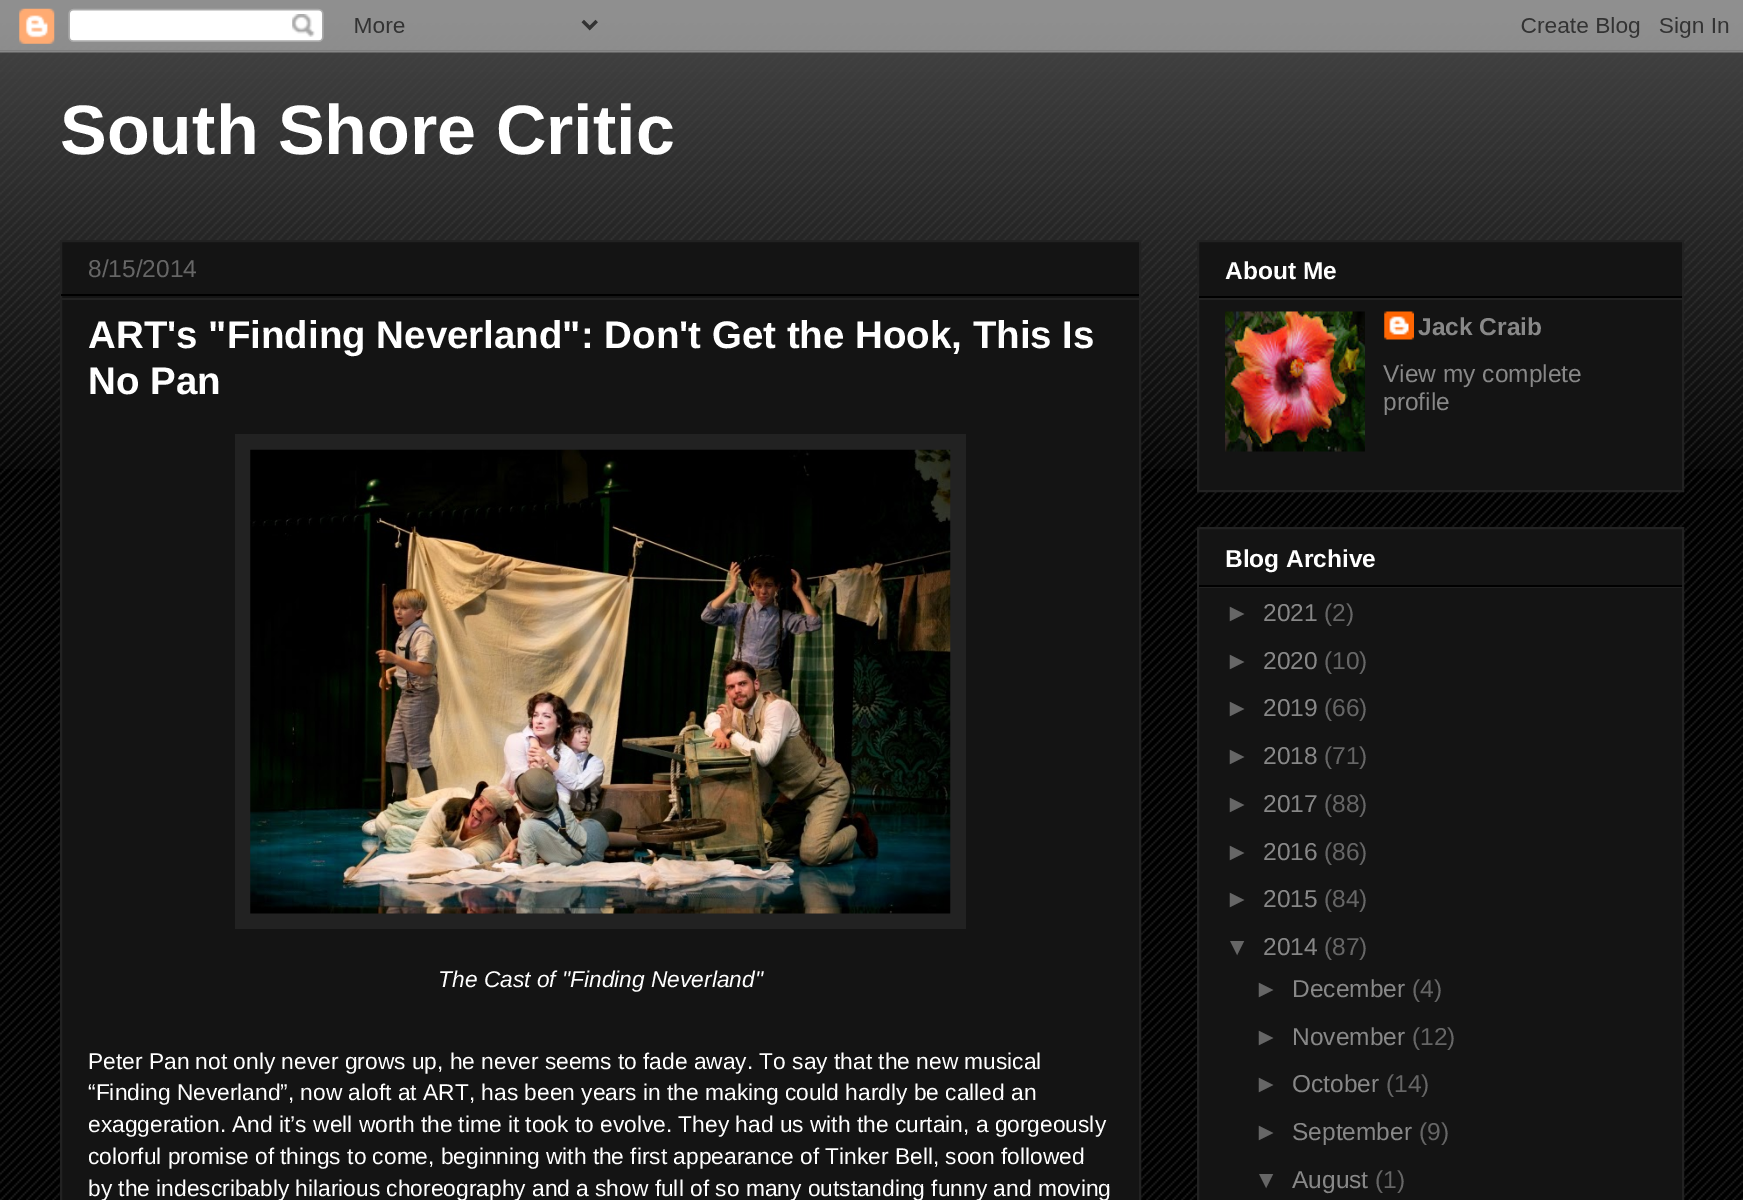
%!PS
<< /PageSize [1743 1200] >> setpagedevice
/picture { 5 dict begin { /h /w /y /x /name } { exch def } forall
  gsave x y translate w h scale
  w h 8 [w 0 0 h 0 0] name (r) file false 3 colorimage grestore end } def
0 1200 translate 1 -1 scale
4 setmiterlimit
0 setgray
0 0 1743 1200 rectfill
(img1.rgb) 0 23 1743 1177 picture
(img2.rgb) 0 0 1743 469 picture
(img3.rgb) 0 0 1743 53 picture
/LiberationSans-Bold [70 0 0 -70 0 0] selectfont
1 setgray
60 154 moveto (South Shore Critic) show
0.078 setgray
newpath 61 241 moveto 1140 241 lineto 1140 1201 lineto 61 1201 lineto closepath gsave fill grestore
0.133 setgray
2 setlinewidth
stroke
0 setgray
61 294 1078 2 rectfill
/LiberationSans-Regular [24.5 0 0 -24.5 0 0] selectfont
0.4 setgray
88 277 moveto (8/15/2014) show
0.133 setgray
61 298 1078 2 rectfill
/LiberationSans-Bold [38.5 0 0 -38.5 0 0] selectfont
1 setgray
88 348 moveto (ART's "Finding Neverland": Don't Get the Hook, This Is) show
88 394 moveto (No Pan) show
0.133 setgray
235 434 731 495 rectfill
(img4.rgb) 250 449 701 465 picture
/LiberationSans-Italic [22.75 0 0 -22.75 0 0] selectfont
1 setgray
438 987 moveto (The Cast of "Finding Neverland") show
/LiberationSans-Regular [22.75 0 0 -22.75 0 0] selectfont
88 1069 moveto (Peter Pan not only never grows up, he never seems to fade away. To say that the new musical) show
88 1100 moveto (“Finding Neverland”, now aloft at ART, has been years in the making could hardly be called an) show
88 1132 moveto (exaggeration. And it’s well worth the time it took to evolve. They had us with the curtain, a gorgeously) show
88 1164 moveto (colorful promise of things to come, beginning with the first appearance of Tinker Bell, soon followed) show
88 1196 moveto (by the indescribably hilarious choreography and a show full of so many outstanding funny and moving) show
0.078 setgray
newpath 1198 241 moveto 1683 241 lineto 1683 491 lineto 1198 491 lineto closepath gsave fill grestore
0.133 setgray
stroke
0 setgray
1199 296 483 2 rectfill
/LiberationSans-Bold [24.5 0 0 -24.5 0 0] selectfont
1 setgray
1225 279 moveto (About Me) show
0.133 setgray
1199 298 483 2 rectfill
(img5.rgb) 1225 311 140 141 picture
(img6.rgb) 1384 311 30 29 picture
0.533 setgray
1418 335 moveto (Jack Craib) show
/LiberationSans-Regular [24.5 0 0 -24.5 0 0] selectfont
1383 382 moveto (View my complete) show
1383 410 moveto (profile) show
0.078 setgray
newpath 1198 528 moveto 1683 528 lineto 1683 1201 lineto 1198 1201 lineto closepath gsave fill grestore
0.133 setgray
stroke
0 setgray
1199 585 483 2 rectfill
/LiberationSans-Bold [24.5 0 0 -24.5 0 0] selectfont
1 setgray
1225 567 moveto (Blog Archive) show
0.133 setgray
1199 587 483 1 rectfill
/LiberationSans-Regular [24.5 0 0 -24.5 0 0] selectfont
0.4 setgray
1225 621 moveto (►) show
0.533 setgray
1263 621 moveto (2021) show
0.4 setgray
1324 621 moveto (\(2\)) show
1225 669 moveto (►) show
0.533 setgray
1263 669 moveto (2020) show
0.4 setgray
1324 669 moveto (\(10\)) show
1225 716 moveto (►) show
0.533 setgray
1263 716 moveto (2019) show
0.4 setgray
1324 716 moveto (\(66\)) show
1225 764 moveto (►) show
0.533 setgray
1263 764 moveto (2018) show
0.4 setgray
1324 764 moveto (\(71\)) show
1225 812 moveto (►) show
0.533 setgray
1263 812 moveto (2017) show
0.4 setgray
1324 812 moveto (\(88\)) show
1225 860 moveto (►) show
0.533 setgray
1263 860 moveto (2016) show
0.4 setgray
1324 860 moveto (\(86\)) show
1225 907 moveto (►) show
0.533 setgray
1263 907 moveto (2015) show
0.4 setgray
1324 907 moveto (\(84\)) show
1225 955 moveto (▼) show
0.533 setgray
1263 955 moveto (2014) show
0.4 setgray
1324 955 moveto (\(87\)) show
1254 997 moveto (►) show
0.533 setgray
1292 997 moveto (December) show
0.4 setgray
1412 997 moveto (\(4\)) show
1254 1045 moveto (►) show
0.533 setgray
1292 1045 moveto (November) show
0.4 setgray
1412 1045 moveto (\(12\)) show
1254 1092 moveto (►) show
0.533 setgray
1292 1092 moveto (October) show
0.4 setgray
1386 1092 moveto (\(14\)) show
1254 1140 moveto (►) show
0.533 setgray
1292 1140 moveto (September) show
0.4 setgray
1419 1140 moveto (\(9\)) show
1254 1188 moveto (▼) show
0.533 setgray
1292 1188 moveto (August) show
0.4 setgray
1375 1188 moveto (\(1\)) show
showpage
